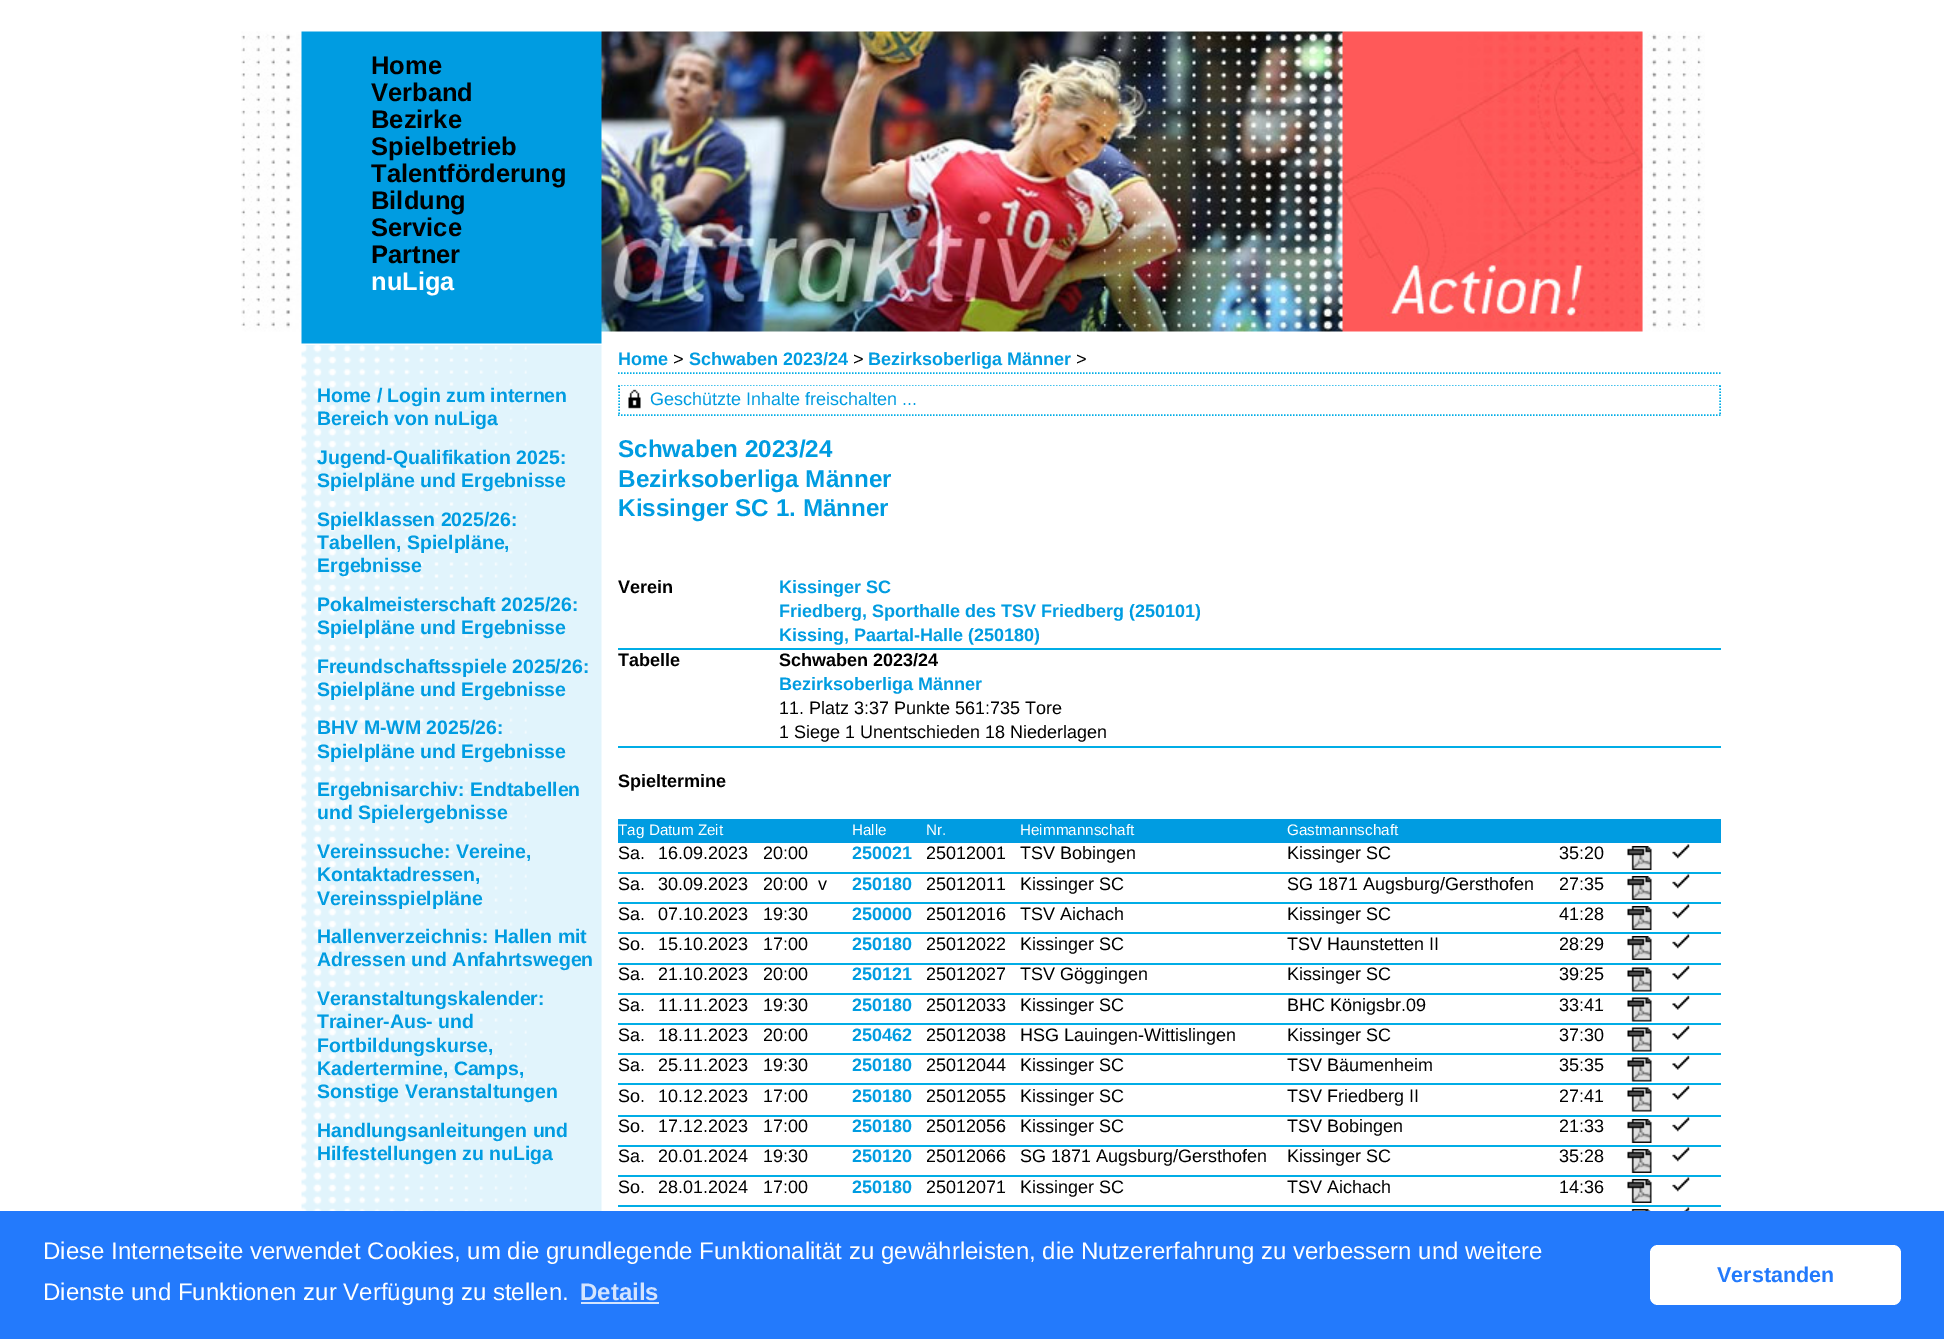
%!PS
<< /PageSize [1944 1339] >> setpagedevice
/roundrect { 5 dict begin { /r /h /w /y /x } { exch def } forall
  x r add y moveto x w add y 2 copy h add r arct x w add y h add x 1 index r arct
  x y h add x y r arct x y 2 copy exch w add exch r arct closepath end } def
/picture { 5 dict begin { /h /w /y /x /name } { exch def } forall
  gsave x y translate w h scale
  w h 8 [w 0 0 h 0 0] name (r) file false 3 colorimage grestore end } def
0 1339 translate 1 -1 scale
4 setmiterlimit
1 setgray
0 0 1944 1339 rectfill
(img1.rgb) 301 345 301 866 picture
(img2.rgb) 241 31 1464 313 picture
/LiberationSans-Bold [25.5 0 0 -25.5 0 0] selectfont
0 setgray
371 74 moveto (Home) show
371 101 moveto (Verband) show
371 128 moveto (Bezirke) show
371 155 moveto (Spielbetrieb) show
371 182 moveto (Talentförderung) show
371 209 moveto (Bildung) show
371 236 moveto (Service) show
371 263 moveto (Partner) show
1 setgray
371 290 moveto (nuLiga) show
/LiberationSans-Bold [19.5 0 0 -19.5 0 0] selectfont
0 0.612 0.882 setrgbcolor
317 402 moveto (Home / Login zum internen) show
317 425 moveto (Bereich von nuLiga) show
317 464 moveto (Jugend-Qualifikation 2025:) show
317 487 moveto (Spielpläne und Ergebnisse) show
317 526 moveto (Spielklassen 2025/26:) show
317 549 moveto (Tabellen, Spielpläne,) show
317 572 moveto (Ergebnisse) show
317 611 moveto (Pokalmeisterschaft 2025/26:) show
317 634 moveto (Spielpläne und Ergebnisse) show
317 673 moveto (Freundschaftsspiele 2025/26:) show
317 696 moveto (Spielpläne und Ergebnisse) show
317 734 moveto (BHV M-WM 2025/26:) show
317 758 moveto (Spielpläne und Ergebnisse) show
317 796 moveto (Ergebnisarchiv: Endtabellen) show
317 819 moveto (und Spielergebnisse) show
317 858 moveto (Vereinssuche: Vereine,) show
317 881 moveto (Kontaktadressen,) show
317 905 moveto (Vereinsspielpläne) show
317 943 moveto (Hallenverzeichnis: Hallen mit) show
317 966 moveto (Adressen und Anfahrtswegen) show
317 1005 moveto (Veranstaltungskalender:) show
317 1028 moveto (Trainer-Aus- und) show
317 1052 moveto (Fortbildungskurse,) show
317 1075 moveto (Kadertermine, Camps,) show
317 1098 moveto (Sonstige Veranstaltungen) show
317 1137 moveto (Handlungsanleitungen und) show
317 1160 moveto (Hilfestellungen zu nuLiga) show
0 0.678 0.902 setrgbcolor
1.5 setlinewidth
[1.5 1.5] 0 setdash
newpath 618 386 moveto 1720.5 386 lineto stroke
newpath 1720 385.5 moveto 1720 415.5 lineto stroke
newpath 618 415 moveto 1720.5 415 lineto stroke
newpath 619 385.5 moveto 619 415.5 lineto stroke
1 setgray
621 386 1097 1 rectfill
(img3.rgb) 628 389 13 20 picture
/LiberationSans-Regular [18 0 0 -18 0 0] selectfont
0 0.612 0.882 setrgbcolor
650 405 moveto (Geschützte Inhalte freischalten ...) show
/LiberationSans-Bold [24.25 0 0 -24.25 0 0] selectfont
618 457 moveto (Schwaben 2023/24) show
618 487 moveto (Bezirksoberliga Männer) show
618 516 moveto (Kissinger SC 1. Männer) show
0 0.678 0.902 setrgbcolor
618 648 1103 2 rectfill
/LiberationSans-Bold [18 0 0 -18 0 0] selectfont
0 setgray
618 593 moveto (Verein) show
0 0.612 0.882 setrgbcolor
779 593 moveto (Kissinger SC) show
779 617 moveto (Friedberg, Sporthalle des TSV Friedberg \(250101\)) show
779 641 moveto (Kissing, Paartal-Halle \(250180\)) show
0 0.678 0.902 setrgbcolor
618 746 1103 2 rectfill
0 setgray
618 666 moveto (Tabelle) show
779 666 moveto (Schwaben 2023/24) show
0 0.612 0.882 setrgbcolor
779 690 moveto (Bezirksoberliga Männer) show
/LiberationSans-Regular [18 0 0 -18 0 0] selectfont
0 setgray
779 714 moveto (11. Platz 3:37 Punkte 561:735 Tore) show
779 738 moveto (1 Siege 1 Unentschieden 18 Niederlagen) show
/LiberationSans-Bold [18 0 0 -18 0 0] selectfont
618 787 moveto (Spieltermine) show
0 0.612 0.882 setrgbcolor
618 819 1103 24 rectfill
/LiberationSans-Regular [15.25 0 0 -15.25 0 0] selectfont
1 setgray
618 835 moveto (Tag Datum Zeit) show
852 835 moveto (Halle) show
926 835 moveto (Nr.) show
1020 835 moveto (Heimmannschaft) show
1287 835 moveto (Gastmannschaft) show
0 0.678 0.902 setrgbcolor
618 872 1103 2 rectfill
/LiberationSans-Regular [18 0 0 -18 0 0] selectfont
0 setgray
618 859 moveto (Sa.) show
658 859 moveto (16.09.2023) show
763 859 moveto (20:00) show
/LiberationSans-Bold [18 0 0 -18 0 0] selectfont
0 0.612 0.882 setrgbcolor
852 859 moveto (250021) show
/LiberationSans-Regular [18 0 0 -18 0 0] selectfont
0 setgray
926 859 moveto (25012001) show
1020 859 moveto (TSV Bobingen) show
1287 859 moveto (Kissinger SC) show
1559 859 moveto (35:20) show
(img4.rgb) 1627 846 25 24 picture
(img5.rgb) 1672 844 18 15 picture
0 0.678 0.902 setrgbcolor
618 902 1103 2 rectfill
0 setgray
618 890 moveto (Sa.) show
658 890 moveto (30.09.2023) show
763 890 moveto (20:00) show
818 890 moveto (v) show
/LiberationSans-Bold [18 0 0 -18 0 0] selectfont
0 0.612 0.882 setrgbcolor
852 890 moveto (250180) show
/LiberationSans-Regular [18 0 0 -18 0 0] selectfont
0 setgray
926 890 moveto (25012011) show
1020 890 moveto (Kissinger SC) show
1287 890 moveto (SG 1871 Augsburg/Gersthofen) show
1559 890 moveto (27:35) show
(img4.rgb) 1627 876 25 24 picture
(img5.rgb) 1672 874 18 15 picture
0 0.678 0.902 setrgbcolor
618 932 1103 2 rectfill
0 setgray
618 920 moveto (Sa.) show
658 920 moveto (07.10.2023) show
763 920 moveto (19:30) show
/LiberationSans-Bold [18 0 0 -18 0 0] selectfont
0 0.612 0.882 setrgbcolor
852 920 moveto (250000) show
/LiberationSans-Regular [18 0 0 -18 0 0] selectfont
0 setgray
926 920 moveto (25012016) show
1020 920 moveto (TSV Aichach) show
1287 920 moveto (Kissinger SC) show
1559 920 moveto (41:28) show
(img4.rgb) 1627 906 25 24 picture
(img5.rgb) 1672 904 18 15 picture
0 0.678 0.902 setrgbcolor
618 963 1103 2 rectfill
0 setgray
618 950 moveto (So.) show
658 950 moveto (15.10.2023) show
763 950 moveto (17:00) show
/LiberationSans-Bold [18 0 0 -18 0 0] selectfont
0 0.612 0.882 setrgbcolor
852 950 moveto (250180) show
/LiberationSans-Regular [18 0 0 -18 0 0] selectfont
0 setgray
926 950 moveto (25012022) show
1020 950 moveto (Kissinger SC) show
1287 950 moveto (TSV Haunstetten II) show
1559 950 moveto (28:29) show
(img4.rgb) 1627 936 25 24 picture
(img5.rgb) 1672 934 18 15 picture
0 0.678 0.902 setrgbcolor
618 993 1103 2 rectfill
0 setgray
618 980 moveto (Sa.) show
658 980 moveto (21.10.2023) show
763 980 moveto (20:00) show
/LiberationSans-Bold [18 0 0 -18 0 0] selectfont
0 0.612 0.882 setrgbcolor
852 980 moveto (250121) show
/LiberationSans-Regular [18 0 0 -18 0 0] selectfont
0 setgray
926 980 moveto (25012027) show
1020 980 moveto (TSV Göggingen) show
1287 980 moveto (Kissinger SC) show
1559 980 moveto (39:25) show
(img6.rgb) 1627 967 25 25 picture
(img7.rgb) 1672 965 18 15 picture
0 0.678 0.902 setrgbcolor
618 1023 1103 2 rectfill
0 setgray
618 1011 moveto (Sa.) show
658 1011 moveto (11.11.2023) show
763 1011 moveto (19:30) show
/LiberationSans-Bold [18 0 0 -18 0 0] selectfont
0 0.612 0.882 setrgbcolor
852 1011 moveto (250180) show
/LiberationSans-Regular [18 0 0 -18 0 0] selectfont
0 setgray
926 1011 moveto (25012033) show
1020 1011 moveto (Kissinger SC) show
1287 1011 moveto (BHC Königsbr.09) show
1559 1011 moveto (33:41) show
(img6.rgb) 1627 997 25 25 picture
(img7.rgb) 1672 995 18 15 picture
0 0.678 0.902 setrgbcolor
618 1053 1103 2 rectfill
0 setgray
618 1041 moveto (Sa.) show
658 1041 moveto (18.11.2023) show
763 1041 moveto (20:00) show
/LiberationSans-Bold [18 0 0 -18 0 0] selectfont
0 0.612 0.882 setrgbcolor
852 1041 moveto (250462) show
/LiberationSans-Regular [18 0 0 -18 0 0] selectfont
0 setgray
926 1041 moveto (25012038) show
1020 1041 moveto (HSG Lauingen-Wittislingen) show
1287 1041 moveto (Kissinger SC) show
1559 1041 moveto (37:30) show
(img6.rgb) 1627 1027 25 25 picture
(img7.rgb) 1672 1025 18 15 picture
0 0.678 0.902 setrgbcolor
618 1083 1103 2 rectfill
0 setgray
618 1071 moveto (Sa.) show
658 1071 moveto (25.11.2023) show
763 1071 moveto (19:30) show
/LiberationSans-Bold [18 0 0 -18 0 0] selectfont
0 0.612 0.882 setrgbcolor
852 1071 moveto (250180) show
/LiberationSans-Regular [18 0 0 -18 0 0] selectfont
0 setgray
926 1071 moveto (25012044) show
1020 1071 moveto (Kissinger SC) show
1287 1071 moveto (TSV Bäumenheim) show
1559 1071 moveto (35:35) show
(img6.rgb) 1627 1057 25 25 picture
(img7.rgb) 1672 1055 18 15 picture
0 0.678 0.902 setrgbcolor
618 1115 1103 2 rectfill
0 setgray
618 1102 moveto (So.) show
658 1102 moveto (10.12.2023) show
763 1102 moveto (17:00) show
/LiberationSans-Bold [18 0 0 -18 0 0] selectfont
0 0.612 0.882 setrgbcolor
852 1102 moveto (250180) show
/LiberationSans-Regular [18 0 0 -18 0 0] selectfont
0 setgray
926 1102 moveto (25012055) show
1020 1102 moveto (Kissinger SC) show
1287 1102 moveto (TSV Friedberg II) show
1559 1102 moveto (27:41) show
(img6.rgb) 1627 1087 25 25 picture
(img7.rgb) 1672 1085 18 15 picture
0 0.678 0.902 setrgbcolor
618 1145 1103 2 rectfill
0 setgray
618 1132 moveto (So.) show
658 1132 moveto (17.12.2023) show
763 1132 moveto (17:00) show
/LiberationSans-Bold [18 0 0 -18 0 0] selectfont
0 0.612 0.882 setrgbcolor
852 1132 moveto (250180) show
/LiberationSans-Regular [18 0 0 -18 0 0] selectfont
0 setgray
926 1132 moveto (25012056) show
1020 1132 moveto (Kissinger SC) show
1287 1132 moveto (TSV Bobingen) show
1559 1132 moveto (21:33) show
(img4.rgb) 1627 1119 25 24 picture
(img5.rgb) 1672 1117 18 15 picture
0 0.678 0.902 setrgbcolor
618 1175 1103 2 rectfill
0 setgray
618 1162 moveto (Sa.) show
658 1162 moveto (20.01.2024) show
763 1162 moveto (19:30) show
/LiberationSans-Bold [18 0 0 -18 0 0] selectfont
0 0.612 0.882 setrgbcolor
852 1162 moveto (250120) show
/LiberationSans-Regular [18 0 0 -18 0 0] selectfont
0 setgray
926 1162 moveto (25012066) show
1020 1162 moveto (SG 1871 Augsburg/Gersthofen) show
1287 1162 moveto (Kissinger SC) show
1559 1162 moveto (35:28) show
(img4.rgb) 1627 1149 25 24 picture
(img5.rgb) 1672 1147 18 15 picture
0 0.678 0.902 setrgbcolor
618 1205 1103 2 rectfill
0 setgray
618 1193 moveto (So.) show
658 1193 moveto (28.01.2024) show
763 1193 moveto (17:00) show
/LiberationSans-Bold [18 0 0 -18 0 0] selectfont
0 0.612 0.882 setrgbcolor
852 1193 moveto (250180) show
/LiberationSans-Regular [18 0 0 -18 0 0] selectfont
0 setgray
926 1193 moveto (25012071) show
1020 1193 moveto (Kissinger SC) show
1287 1193 moveto (TSV Aichach) show
1559 1193 moveto (14:36) show
(img4.rgb) 1627 1179 25 24 picture
(img5.rgb) 1672 1177 18 15 picture
(img8.rgb) 1631 1209 20 2 picture
(img9.rgb) 1684 1207 6 4 picture
0 0.678 0.902 setrgbcolor
newpath 618 373 moveto 1720.5 373 lineto stroke
/LiberationSans-Bold [18 0 0 -18 0 0] selectfont
0 0.612 0.882 setrgbcolor
618 365 moveto (Home) show
/LiberationSans-Regular [18 0 0 -18 0 0] selectfont
0 setgray
673 365 moveto (>) show
/LiberationSans-Bold [18 0 0 -18 0 0] selectfont
0 0.612 0.882 setrgbcolor
689 365 moveto (Schwaben 2023/24) show
/LiberationSans-Regular [18 0 0 -18 0 0] selectfont
0 setgray
853 365 moveto (>) show
/LiberationSans-Bold [18 0 0 -18 0 0] selectfont
0 0.612 0.882 setrgbcolor
868 365 moveto (Bezirksoberliga Männer) show
/LiberationSans-Regular [18 0 0 -18 0 0] selectfont
0 setgray
1076 365 moveto (>) show
0.137 0.478 0.988 setrgbcolor
0 1211 1944 128 rectfill
/LiberationSans-Regular [24 0 0 -24 0 0] selectfont
1 setgray
43 1259 moveto (Diese Internetseite verwendet Cookies, um die grundlegende Funktionalität zu gewährleisten, die Nutzererfahrung zu verbessern und weitere) show
43 1300 moveto (Dienste und Funktionen zur Verfügung zu stellen.) show
/LiberationSans-Bold [24 0 0 -24 0 0] selectfont
0.827 0.894 0.996 setrgbcolor
580 1300 moveto (Details) show
581 1302 78 2 rectfill
1 setgray
1650 1245 251 60 8 roundrect fill
/LiberationSans-Bold [21.5 0 0 -21.5 0 0] selectfont
0.137 0.478 0.988 setrgbcolor
1717 1282 moveto (Verstanden) show
showpage
